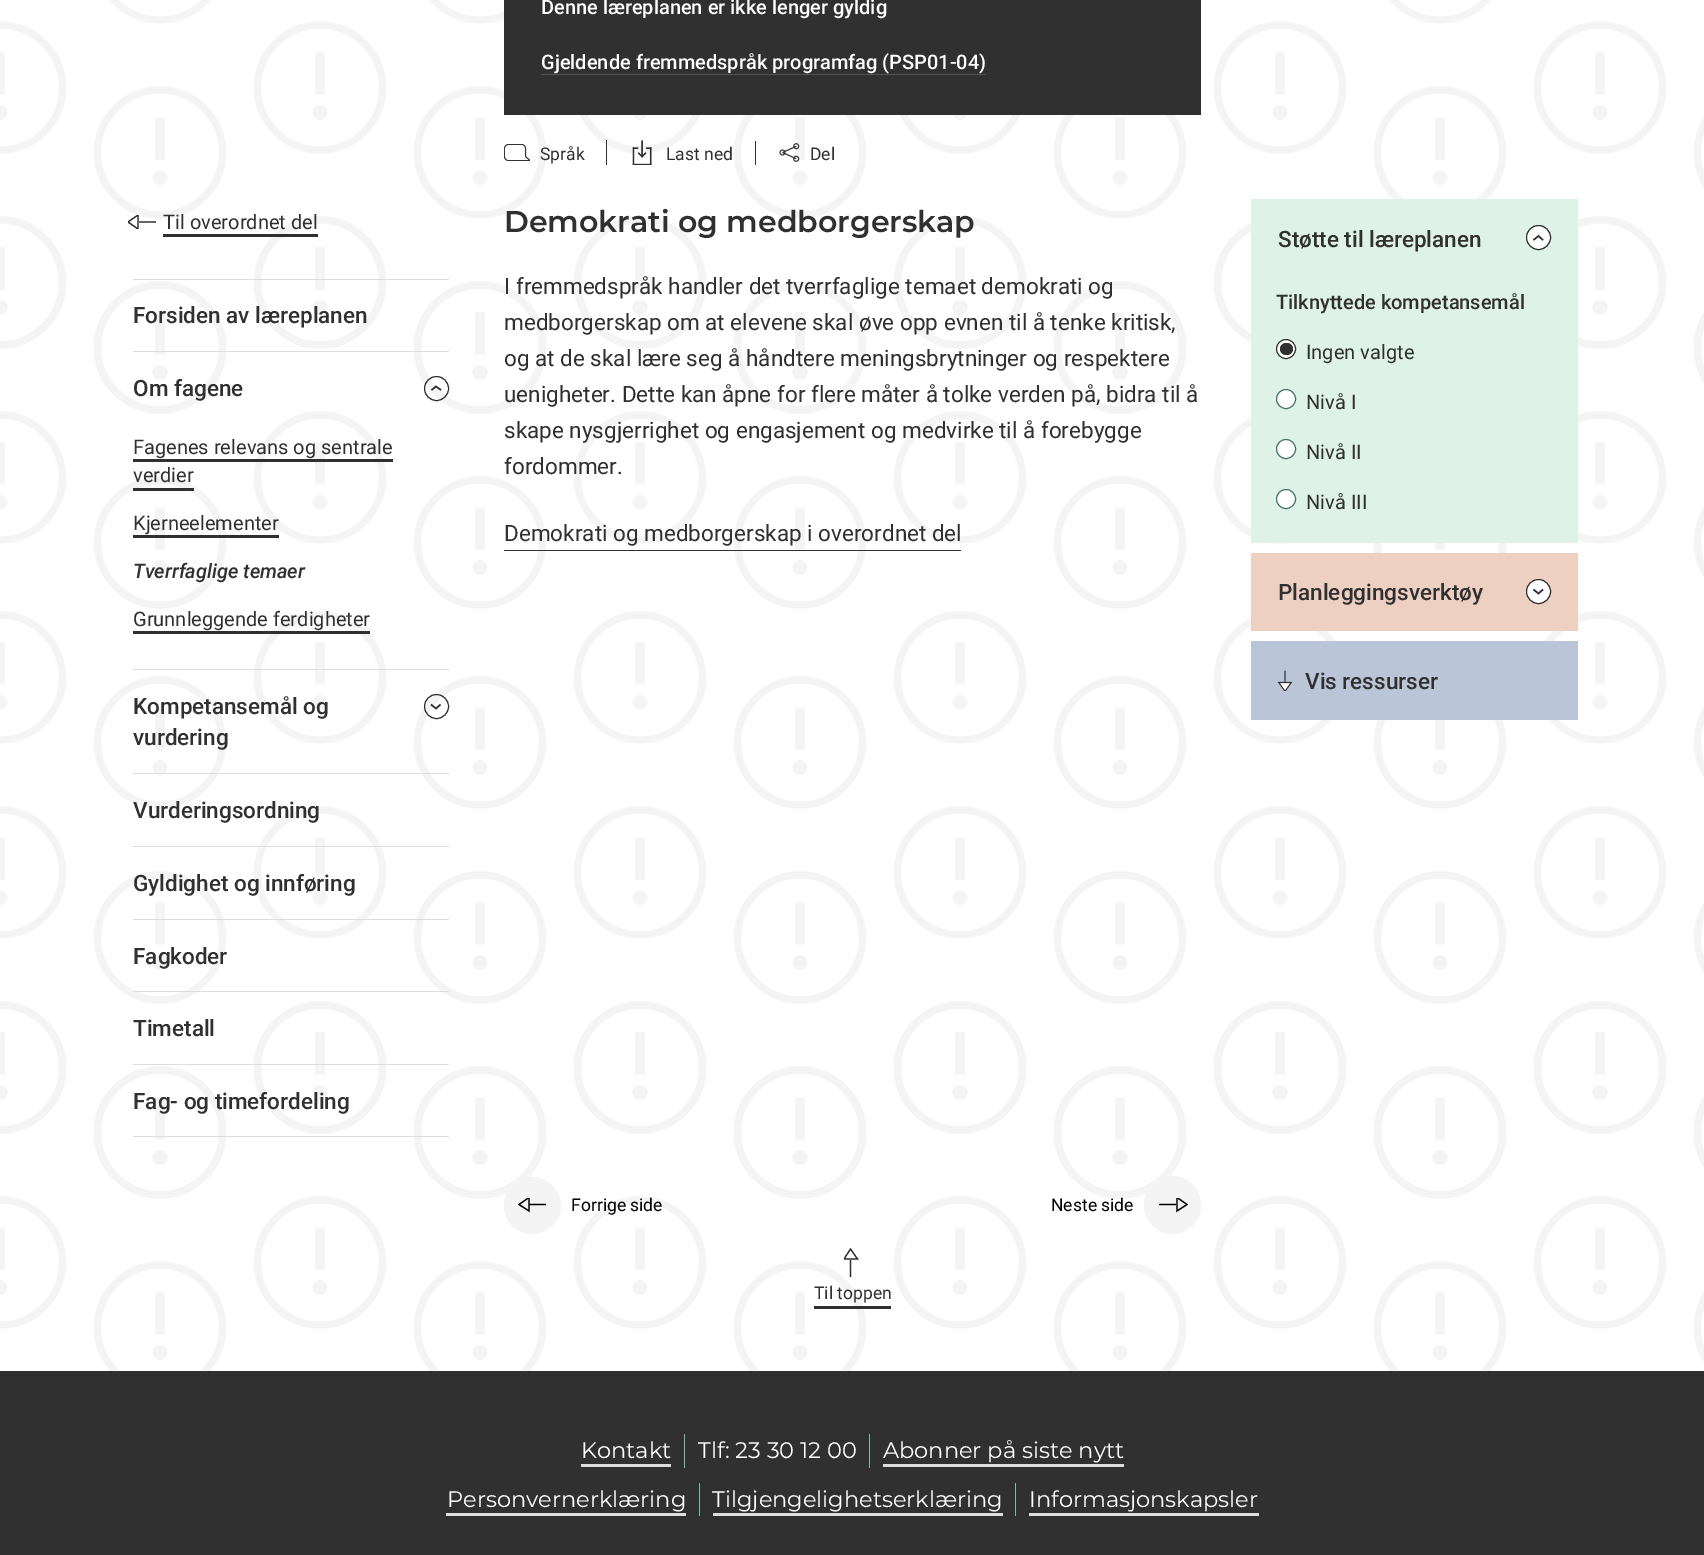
%!PS
<< /PageSize [1704 1555] >> setpagedevice
/roundrect { 5 dict begin { /r /h /w /y /x } { exch def } forall
  x r add y moveto x w add y 2 copy h add r arct x w add y h add x 1 index r arct
  x y h add x y r arct x y 2 copy exch w add exch r arct closepath end } def
/picture { 5 dict begin { /h /w /y /x /name } { exch def } forall
  gsave x y translate w h scale
  w h 8 [w 0 0 h 0 0] name (r) file false 3 colorimage grestore end } def
0 1555 translate 1 -1 scale
4 setmiterlimit
1 setgray
0 0 1704 1555 rectfill
(img1.rgb) 0 0 1704 1371 picture
0.188 setgray
504 0 697 115 rectfill
/Roboto-Medium [20 0 0 -20 0 0] selectfont
1 setgray
541 14 moveto (Denne læreplanen er ikke lenger gyldig) show
541 69 moveto (Gjeldende fremmedspråk programfag \(PSP01‑04\)) show
0.329 0.325 0.325 setrgbcolor
541 74 445 1 rectfill
(img2.rgb) 504 144 26 17 picture
/Roboto-Regular [17.5 0 0 -17.5 0 0] selectfont
0.188 setgray
540 160 moveto (Språk) show
606 140 1 25 rectfill
(img3.rgb) 632 140 20 25 picture
666 160 moveto (Last ned) show
755 141 1 24 rectfill
(img4.rgb) 779 143 21 19 picture
810 160 moveto (Del) show
gsave
128 215 28 14 rectclip
1.2 setlinewidth
newpath 128 222 moveto 138 229 lineto 138 215 lineto closepath 139 222 moveto 156 222 lineto stroke
grestore
/Roboto-Regular [20 0 0 -20 0 0] selectfont
163 229 moveto (Til overordnet del) show
163 234 155 3 rectfill
0.867 setgray
133 279 316 1 rectfill
133 351 316 1 rectfill
/Roboto-Medium [22.5 0 0 -22.5 0 0] selectfont
0.188 setgray
133 323 moveto (Forsiden av læreplanen) show
0.867 setgray
133 669 316 1 rectfill
0.188 setgray
133 396 moveto (Om fagene) show
newpath 436.5 388.5 12 0 360 arc closepath stroke
1.5 setlinewidth
newpath 441 390 moveto 436 386.5 lineto 431.5 390 lineto stroke
/Roboto-Regular [20 0 0 -20 0 0] selectfont
133 454 moveto (Fagenes relevans og sentrale) show
133 459 260 3 rectfill
133 482 moveto (verdier) show
133 488 61 3 rectfill
133 530 moveto (Kjerneelementer) show
133 535 146 3 rectfill
/Roboto-MediumItalic [20 0 0 -20 0 0] selectfont
133 578 moveto (Tverrfaglige temaer) show
/Roboto-Regular [20 0 0 -20 0 0] selectfont
133 626 moveto (Grunnleggende ferdigheter) show
133 631 237 3 rectfill
0.867 setgray
133 773 316 1 rectfill
/Roboto-Medium [22.5 0 0 -22.5 0 0] selectfont
0.188 setgray
133 714 moveto (Kompetansemål og) show
133 745 moveto (vurdering) show
1 setlinewidth
newpath 436.5 706.5 12 0 360 arc closepath stroke
1.5 setlinewidth
newpath 431 704.5 moveto 436 708.5 lineto 440.5 704.5 lineto stroke
0.867 setgray
133 846 316 1 rectfill
0.188 setgray
133 818 moveto (Vurderingsordning) show
0.867 setgray
133 919 316 1 rectfill
0.188 setgray
133 891 moveto (Gyldighet og innføring) show
0.867 setgray
133 991 316 1 rectfill
0.188 setgray
133 964 moveto (Fagkoder) show
0.867 setgray
133 1064 316 1 rectfill
0.188 setgray
133 1036 moveto (Timetall) show
0.867 setgray
133 1136 316 1 rectfill
0.188 setgray
133 1109 moveto (Fag- og timefordeling) show
/Montserrat-SemiBold [30 0 0 -30 0 0] selectfont
504 232 moveto (Demokrati og medborgerskap) show
/Roboto-Regular [22.5 0 0 -22.5 0 0] selectfont
504 294 moveto (I fremmedspråk handler det tverrfaglige temaet demokrati og) show
504 330 moveto (medborgerskap om at elevene skal øve opp evnen til å tenke kritisk,) show
504 366 moveto (og at de skal lære seg å håndtere meningsbrytninger og respektere) show
504 402 moveto (uenigheter. Dette kan åpne for flere måter å tolke verden på, bidra til å) show
504 438 moveto (skape nysgjerrighet og engasjement og medvirke til å forebygge) show
504 474 moveto (fordommer.) show
504 550 457 1 rectfill
504 541 moveto (Demokrati og medborgerskap i overordnet del) show
0.871 0.949 0.906 setrgbcolor
1251 199 327 344 rectfill
/Roboto-Medium [22.5 0 0 -22.5 0 0] selectfont
0.188 setgray
1278 247 moveto (Støtte til læreplanen) show
1 setgray
newpath 1538.5 237.5 12 0 360 arc closepath gsave fill grestore
0.188 setgray
1 setlinewidth
stroke
1.5 setlinewidth
newpath 1543 240 moveto 1538.5 236 lineto 1533.5 240 lineto stroke
/Roboto-Medium [20 0 0 -20 0 0] selectfont
1276 309 moveto (Tilknyttede kompetansemål) show
1 setgray
newpath 1286 349 9.5 0 360 arc closepath gsave fill grestore
0.188 setgray
1 setlinewidth
stroke
1280 343 13 12 6 roundrect fill
/Roboto-Regular [20 0 0 -20 0 0] selectfont
1306 359 moveto (Ingen valgte) show
1 setgray
newpath 1286 399 9.5 0 360 arc closepath gsave fill grestore
0.267 0.447 0.4 setrgbcolor
stroke
0.188 setgray
1306 409 moveto (Nivå I) show
1 setgray
newpath 1286 449 9.5 0 360 arc closepath gsave fill grestore
0.267 0.447 0.4 setrgbcolor
stroke
0.188 setgray
1306 459 moveto (Nivå II) show
1 setgray
newpath 1286 499 9.5 0 360 arc closepath gsave fill grestore
0.267 0.447 0.4 setrgbcolor
stroke
0.188 setgray
1306 509 moveto (Nivå III) show
0.933 0.816 0.765 setrgbcolor
1251 553 327 78 rectfill
/Roboto-Medium [22.5 0 0 -22.5 0 0] selectfont
0.188 setgray
1278 600 moveto (Planleggingsverktøy) show
1 setgray
newpath 1538.5 591.5 12 0 360 arc closepath gsave fill grestore
0.188 setgray
stroke
1.5 setlinewidth
newpath 1533.5 589.5 moveto 1538.5 593.5 lineto 1543 589.5 lineto stroke
0.729 0.776 0.847 setrgbcolor
1251 641 327 79 rectfill
(img5.rgb) 1278 670 15 21 picture
0.188 setgray
1305 689 moveto (Vis ressurser) show
0.957 setgray
newpath 532 1177 moveto 516 1177 504 1190 504 1206 curveto 504 1221 516 1234 532 1234 curveto 548 1234 561 1221 561 1206 curveto 561 1190 548 1177 532 1177 curveto closepath fill
gsave
518 1198 28 16 rectclip
0 setgray
1.2 setlinewidth
newpath 519 1204.5 moveto 529 1211 lineto 529 1197.5 lineto closepath 529.5 1204.5 moveto 547 1204.5 lineto stroke
grestore
/Roboto-Regular [17.5 0 0 -17.5 0 0] selectfont
0 setgray
571 1211 moveto (Forrige side) show
1051 1211 moveto (Neste side) show
0.957 setgray
1144 1176 57 58 28.5 roundrect fill
gsave
1159 1198 29 16 rectclip
0 setgray
1.2 setlinewidth
newpath 1187 1204.5 moveto 1177 1211 lineto 1177 1197.5 lineto closepath 1176 1204.5 moveto 1159 1204.5 lineto stroke
grestore
0.188 setgray
814 1306 77 3 rectfill
gsave
newpath 844.5 1277 moveto 844.5 1248 lineto 860.5 1248 lineto 860.5 1277 lineto closepath clip newpath
1.2 setlinewidth
newpath 850.5 1249 moveto 857.5 1259 lineto 844 1259 lineto closepath 850.5 1260 moveto 850.5 1277.5 lineto stroke
grestore
814 1299 moveto (Til toppen) show
0 1371 1704 184 rectfill
0.49 0.749 0.616 setrgbcolor
684 1434 1 34 rectfill
/Montserrat-Regular [22.5 0 0 -22.5 0 0] selectfont
1 setgray
581 1458 moveto (Kontakt) show
0.867 setgray
581 1464 90 3 rectfill
0.49 0.749 0.616 setrgbcolor
869 1434 1 34 rectfill
1 setgray
698 1458 moveto (Tlf: 23 30 12 00) show
883 1458 moveto (Abonner på siste nytt) show
0.867 setgray
883 1464 241 3 rectfill
0.49 0.749 0.616 setrgbcolor
699 1483 1 33 rectfill
1 setgray
447 1507 moveto (Personvernerklæring) show
0.867 setgray
446 1513 240 3 rectfill
0.49 0.749 0.616 setrgbcolor
1015 1483 1 33 rectfill
1 setgray
712 1507 moveto (Tilgjengelighetserklæring) show
0.867 setgray
713 1513 290 3 rectfill
1029 1513 230 3 rectfill
1 setgray
1029 1507 moveto (Informasjonskapsler) show
showpage
